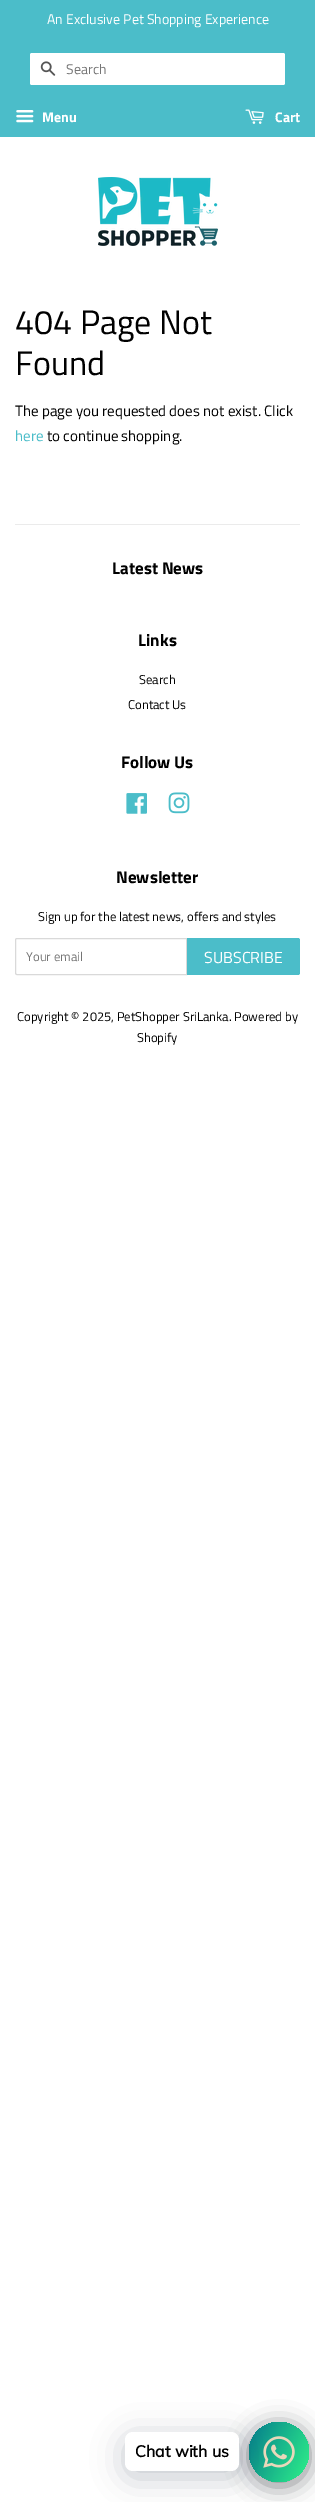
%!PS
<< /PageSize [315 2502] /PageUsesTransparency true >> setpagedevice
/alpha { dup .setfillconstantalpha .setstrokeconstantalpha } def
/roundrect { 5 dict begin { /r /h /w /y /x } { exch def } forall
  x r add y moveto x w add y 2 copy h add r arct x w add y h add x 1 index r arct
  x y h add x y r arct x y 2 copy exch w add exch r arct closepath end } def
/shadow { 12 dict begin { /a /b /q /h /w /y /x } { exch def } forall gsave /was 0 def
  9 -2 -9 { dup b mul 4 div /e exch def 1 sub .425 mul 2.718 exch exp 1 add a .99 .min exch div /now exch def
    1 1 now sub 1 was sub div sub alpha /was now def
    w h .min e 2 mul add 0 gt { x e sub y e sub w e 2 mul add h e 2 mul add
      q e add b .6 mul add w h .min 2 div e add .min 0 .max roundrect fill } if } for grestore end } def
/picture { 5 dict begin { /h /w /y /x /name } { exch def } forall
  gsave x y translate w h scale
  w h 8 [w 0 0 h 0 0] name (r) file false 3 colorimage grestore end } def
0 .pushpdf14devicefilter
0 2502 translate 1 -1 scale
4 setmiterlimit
1 setgray
0 0 315 2502 rectfill
0.294 0.741 0.788 setrgbcolor
0 0 315 137 rectfill
/TitilliumWeb-Regular [14 0 0 -14 0 0] selectfont
1 setgray
47 24 moveto (An Exclusive Pet Shopping Experience) show
30 53 255 32 2 roundrect fill
(img1.rgb) 40 61 16 15 picture
0.459 setgray
66 74 moveto (Search) show
(img2.rgb) 16 110 18 13 picture
/TitilliumWeb-Bold [14 0 0 -14 0 0] selectfont
1 setgray
42 122 moveto (Menu) show
(img3.rgb) 245 109 19 15 picture
275 122 moveto (Cart) show
(img4.rgb) 98 177 120 69 picture
/TitilliumWeb-Regular [34 0 0 -34 0 0] selectfont
0 setgray
15 334 moveto (404 Page Not) show
15 375 moveto (Found) show
/TitilliumWeb-Regular [15 0 0 -15 0 0] selectfont
15 416 moveto (The page you requested does not exist. Click) show
0.294 0.741 0.788 setrgbcolor
15 441 moveto (here) show
0 setgray
47 441 moveto (to continue shopping.) show
0.922 setgray
15 524 285 1 rectfill
/TitilliumWeb-Bold [17 0 0 -17 0 0] selectfont
0 setgray
112 574 moveto (Latest News) show
138 646 moveto (Links) show
/TitilliumWeb-Regular [12.75 0 0 -12.75 0 0] selectfont
139 684 moveto (Search) show
128 709 moveto (Contact Us) show
/TitilliumWeb-Bold [17 0 0 -17 0 0] selectfont
121 768 moveto (Follow Us) show
(img5.rgb) 126 793 21 21 picture
(img6.rgb) 168 792 22 22 picture
116 883 moveto (Newsletter) show
/TitilliumWeb-Regular [12.75 0 0 -12.75 0 0] selectfont
38 921 moveto (Sign up for the latest news, offers and styles) show
0.851 setgray
newpath 17 938.5 moveto 186.5 938.5 lineto 186.5 974.5 lineto 17 974.5 lineto 16 974.5 15.5 974 15.5 973 curveto 15.5 940 lineto 15.5 939 16 938.5 17 938.5 curveto closepath stroke
0.459 setgray
26 961 moveto (Your email) show
0.294 0.741 0.788 setrgbcolor
newpath 187 938 moveto 298 938 lineto 299 938 300 939 300 940 curveto 300 973 lineto 300 974 299 975 298 975 curveto 187 975 lineto closepath fill
/TitilliumWeb-Regular [16 0 0 -16 0 0] selectfont
1 setgray
204 963 moveto (SUBSCRIBE) show
/TitilliumWeb-Regular [12.75 0 0 -12.75 0 0] selectfont
0 setgray
17 1021 moveto (Copyright © 2025, PetShopper SriLanka. Powered by) show
137 1042 moveto (Shopify) show
0.008 0.024 0.063 setrgbcolor
249 2426 60 60 30 12 0.5 shadow
gsave newpath 279 2452 30 0 360 arc closepath clip newpath
<< /ShadingType 2 /ColorSpace /DeviceRGB /Coords [243 2435 315 2469] /Extend [true true] /Function << /FunctionType 2 /Domain [0 1] /C0 [0.016 0.486 0.553] /C1 [0.184 0.949 0.537] /N 1 >> >> shfill grestore
0 0.071 0.18 setrgbcolor
125 2438 114 39 8 16 0.24 shadow
1 setgray
125 2432 114 39 8 roundrect fill
/Muli-Bold [16 0 0 -16 0 0] selectfont
0 setgray
135 2457 moveto (Chat with us) show
(img7.rgb) 263 2436 32 32 picture
.poppdf14devicefilter showpage
